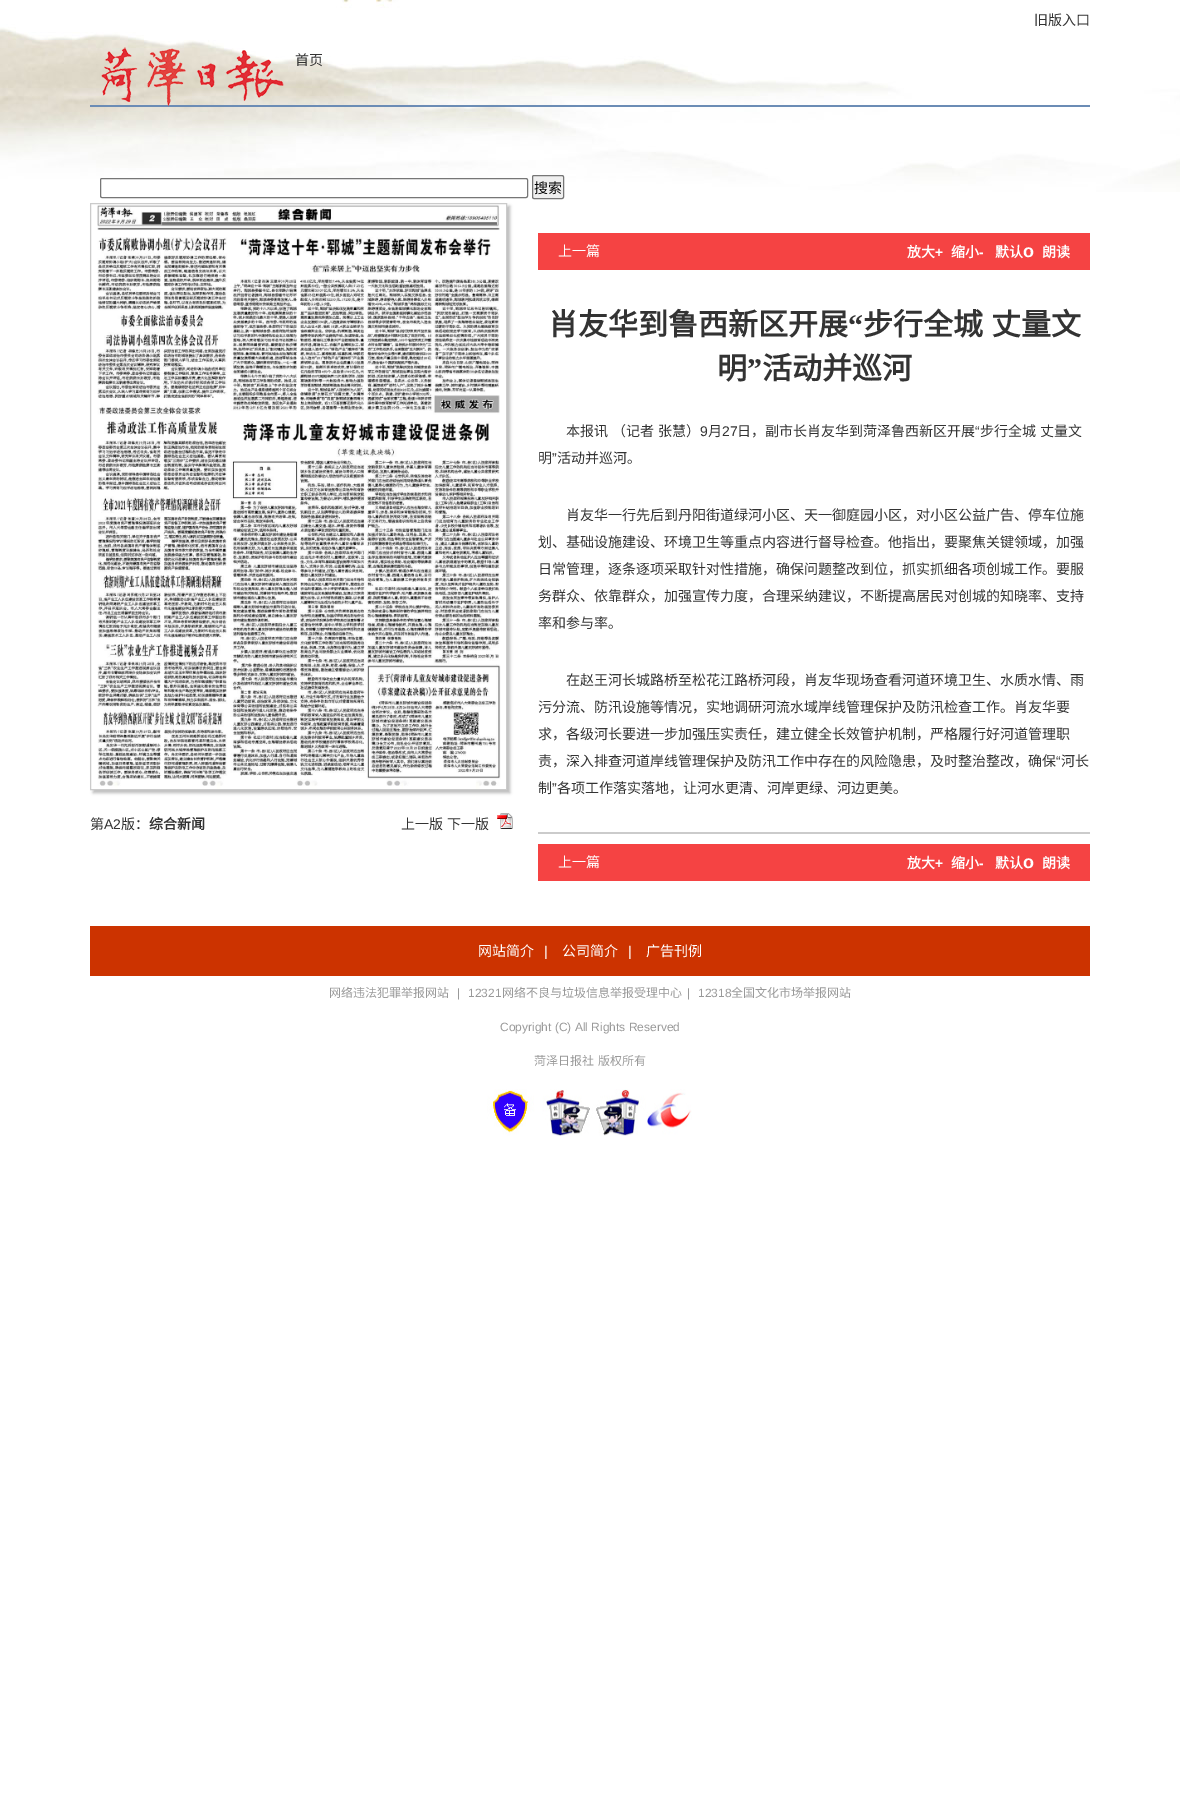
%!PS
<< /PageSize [1180 1799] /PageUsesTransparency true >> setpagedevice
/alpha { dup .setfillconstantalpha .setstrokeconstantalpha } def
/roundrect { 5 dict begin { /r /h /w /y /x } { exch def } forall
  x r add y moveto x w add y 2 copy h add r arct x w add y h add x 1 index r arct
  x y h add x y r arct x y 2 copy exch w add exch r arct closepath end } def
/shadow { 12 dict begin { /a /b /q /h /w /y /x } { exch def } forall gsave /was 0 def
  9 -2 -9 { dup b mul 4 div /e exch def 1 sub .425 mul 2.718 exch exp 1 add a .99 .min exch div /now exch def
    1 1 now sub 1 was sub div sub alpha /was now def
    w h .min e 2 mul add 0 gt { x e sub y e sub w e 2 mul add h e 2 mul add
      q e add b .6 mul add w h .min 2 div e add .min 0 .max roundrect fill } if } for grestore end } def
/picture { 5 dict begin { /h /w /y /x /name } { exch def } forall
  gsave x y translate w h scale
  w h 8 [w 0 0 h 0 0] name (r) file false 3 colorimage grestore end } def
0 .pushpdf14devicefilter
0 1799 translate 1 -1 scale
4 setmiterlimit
1 setgray
0 0 1180 1799 rectfill
(img1.rgb) 0 0 1180 192 picture
0.42 0.549 0.71 setrgbcolor
90 105 1000 2 rectfill
(img2.rgb) 101 47 183 59 picture
/NotoSansCJKSC-Regular [14 0 0 -14 0 0] selectfont
0.2 setgray
1034 25 moveto (旧版入口) show
295 65 moveto (首页) show
1 setgray
100.5 178.5 427 19 1.5 roundrect gsave fill grestore
0.463 setgray
stroke
0.937 setgray
532.5 175.5 31 23 1.5 roundrect gsave fill grestore
0.463 setgray
stroke
0 setgray
534 193 moveto (搜索) show
gsave
newpath 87 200 moveto 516 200 lineto 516 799 lineto 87 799 lineto closepath 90 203 moveto 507 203 lineto 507 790 lineto 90 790 lineto closepath eoclip newpath
0.737 setgray
93 206 417 587 0 1.5 1 shadow
grestore
0.796 setgray
90.5 203.5 416 586 rectstroke
(img3.rgb) 97 205 404 584 picture
0.2 setgray
90 829 moveto (第) show
/LiberationSans-Regular [14 0 0 -14 0 0] selectfont
104 829 moveto (A2) show
/NotoSansCJKSC-Regular [14 0 0 -14 0 0] selectfont
121 829 moveto (版：) show
/NotoSansCJKSC-Bold [14 0 0 -14 0 0] selectfont
149 829 moveto (综合新闻) show
/NotoSansCJKSC-Regular [14 0 0 -14 0 0] selectfont
401 829 moveto (上一版) show
447 829 moveto (下一版) show
(img4.rgb) 497 813 16 16 picture
0.961 0.263 0.263 setrgbcolor
538 233 552 37 rectfill
1 setgray
558 256 moveto (上一篇) show
/NotoSansCJKSC-Bold [14 0 0 -14 0 0] selectfont
907 257 moveto (放大) show
/LiberationSans-Bold [14 0 0 -14 0 0] selectfont
935 257 moveto (+) show
/NotoSansCJKSC-Bold [14 0 0 -14 0 0] selectfont
951 257 moveto (缩小) show
/LiberationSans-Bold [14 0 0 -14 0 0] selectfont
979 257 moveto (-) show
/NotoSansCJKSC-Bold [14 0 0 -14 0 0] selectfont
995 257 moveto (默认) show
/LiberationSans-Bold [18 0 0 -18 0 0] selectfont
1023 257 moveto (o) show
/NotoSansCJKSC-Bold [14 0 0 -14 0 0] selectfont
1042 257 moveto (朗读) show
0.796 setgray
538 832 552 2 rectfill
/NotoSansCJKSC-Bold [30 0 0 -30 0 0] selectfont
0.2 setgray
548 335 moveto (肖友华到鲁西新区开展) show
/LiberationSerif-Bold [30 0 0 -30 0 0] selectfont
848 335 moveto (“) show
/NotoSansCJKSC-Bold [30 0 0 -30 0 0] selectfont
863 335 moveto 1 0 32 (步行全城 丈量文) widthshow
717 379 moveto (明) show
/LiberationSerif-Bold [30 0 0 -30 0 0] selectfont
747 379 moveto (”) show
/NotoSansCJKSC-Bold [30 0 0 -30 0 0] selectfont
762 379 moveto (活动并巡河) show
/NotoSansCJKSC-Regular [14 0 0 -14 0 0] selectfont
566 436 moveto 1 0 32 (本报讯 （记者 张慧）) widthshow
/LiberationSans-Regular [14 0 0 -14 0 0] selectfont
700 436 moveto (9) show
/NotoSansCJKSC-Regular [14 0 0 -14 0 0] selectfont
708 436 moveto (月) show
/LiberationSans-Regular [14 0 0 -14 0 0] selectfont
722 436 moveto (27) show
/NotoSansCJKSC-Regular [14 0 0 -14 0 0] selectfont
737 436 moveto (日，副市长肖友华到菏泽鲁西新区开展) show
/LiberationSans-Regular [14 0 0 -14 0 0] selectfont
975 436 moveto (“) show
/NotoSansCJKSC-Regular [14 0 0 -14 0 0] selectfont
980 436 moveto 1 0 32 (步行全城 丈量文) widthshow
538 463 moveto (明) show
/LiberationSans-Regular [14 0 0 -14 0 0] selectfont
552 463 moveto (”) show
/NotoSansCJKSC-Regular [14 0 0 -14 0 0] selectfont
557 463 moveto (活动并巡河。) show
566 520 moveto (肖友华一行先后到丹阳街道绿河小区、天一御庭园小区，对小区公益广告、停车位施) show
538 547 moveto (划、基础设施建设、环境卫生等重点内容进行督导检查。他指出，要聚焦关键领域，加强) show
538 574 moveto (日常管理，逐条逐项采取针对性措施，确保问题整改到位，抓实抓细各项创城工作。要服) show
538 601 moveto (务群众、依靠群众，加强宣传力度，合理采纳建议，不断提高居民对创城的知晓率、支持) show
538 628 moveto (率和参与率。) show
566 685 moveto (在赵王河长城路桥至松花江路桥河段，肖友华现场查看河道环境卫生、水质水情、雨) show
538 712 moveto (污分流、防汛设施等情况，实地调研河流水域岸线管理保护及防汛检查工作。肖友华要) show
538 739 moveto (求，各级河长要进一步加强压实责任，建立健全长效管护机制，严格履行好河道管理职) show
538 766 moveto (责，深入排查河道岸线管理保护及防汛工作中存在的风险隐患，及时整治整改，确保) show
/LiberationSans-Regular [14 0 0 -14 0 0] selectfont
1056 766 moveto (“) show
/NotoSansCJKSC-Regular [14 0 0 -14 0 0] selectfont
1061 766 moveto (河长) show
538 793 moveto (制) show
/LiberationSans-Regular [14 0 0 -14 0 0] selectfont
552 793 moveto (”) show
/NotoSansCJKSC-Regular [14 0 0 -14 0 0] selectfont
557 793 moveto (各项工作落实落地，让河水更清、河岸更绿、河边更美。) show
0.961 0.263 0.263 setrgbcolor
538 844 552 37 rectfill
1 setgray
558 867 moveto (上一篇) show
/NotoSansCJKSC-Bold [14 0 0 -14 0 0] selectfont
907 868 moveto (放大) show
/LiberationSans-Bold [14 0 0 -14 0 0] selectfont
935 868 moveto (+) show
/NotoSansCJKSC-Bold [14 0 0 -14 0 0] selectfont
951 868 moveto (缩小) show
/LiberationSans-Bold [14 0 0 -14 0 0] selectfont
979 868 moveto (-) show
/NotoSansCJKSC-Bold [14 0 0 -14 0 0] selectfont
995 868 moveto (默认) show
/LiberationSans-Bold [18 0 0 -18 0 0] selectfont
1023 868 moveto (o) show
/NotoSansCJKSC-Bold [14 0 0 -14 0 0] selectfont
1042 868 moveto (朗读) show
0.8 0.2 0 setrgbcolor
90 926 1000 50 rectfill
/NotoSansCJKSC-Regular [14 0 0 -14 0 0] selectfont
1 setgray
478 956 moveto (网站简介) show
/LiberationSans-Regular [14 0 0 -14 0 0] selectfont
544 956 moveto (|) show
/NotoSansCJKSC-Regular [14 0 0 -14 0 0] selectfont
562 956 moveto (公司简介) show
/LiberationSans-Regular [14 0 0 -14 0 0] selectfont
628 956 moveto (|) show
/NotoSansCJKSC-Regular [14 0 0 -14 0 0] selectfont
646 956 moveto (广告刊例) show
/NotoSansCJKSC-Regular [12 0 0 -12 0 0] selectfont
0.6 setgray
329 997 moveto (网络违法犯罪举报网站) show
/LiberationSans-Regular [12 0 0 -12 0 0] selectfont
457 997 moveto (|) show
468 997 moveto (12321) show
/NotoSansCJKSC-Regular [12 0 0 -12 0 0] selectfont
502 997 moveto (网络不良与垃圾信息举报受理中心) show
/LiberationSans-Regular [12 0 0 -12 0 0] selectfont
687 997 moveto (|) show
698 997 moveto (12318) show
/NotoSansCJKSC-Regular [12 0 0 -12 0 0] selectfont
731 997 moveto (全国文化市场举报网站) show
/LiberationSans-Regular [12 0 0 -12 0 0] selectfont
500 1031 moveto (Copyright \(C\) All Rights Reserved) show
/NotoSansCJKSC-Regular [12 0 0 -12 0 0] selectfont
534 1065 moveto 1 0 32 (菏泽日报社 版权所有) widthshow
(img5.rgb) 487 1089 205 47 picture
.poppdf14devicefilter showpage
